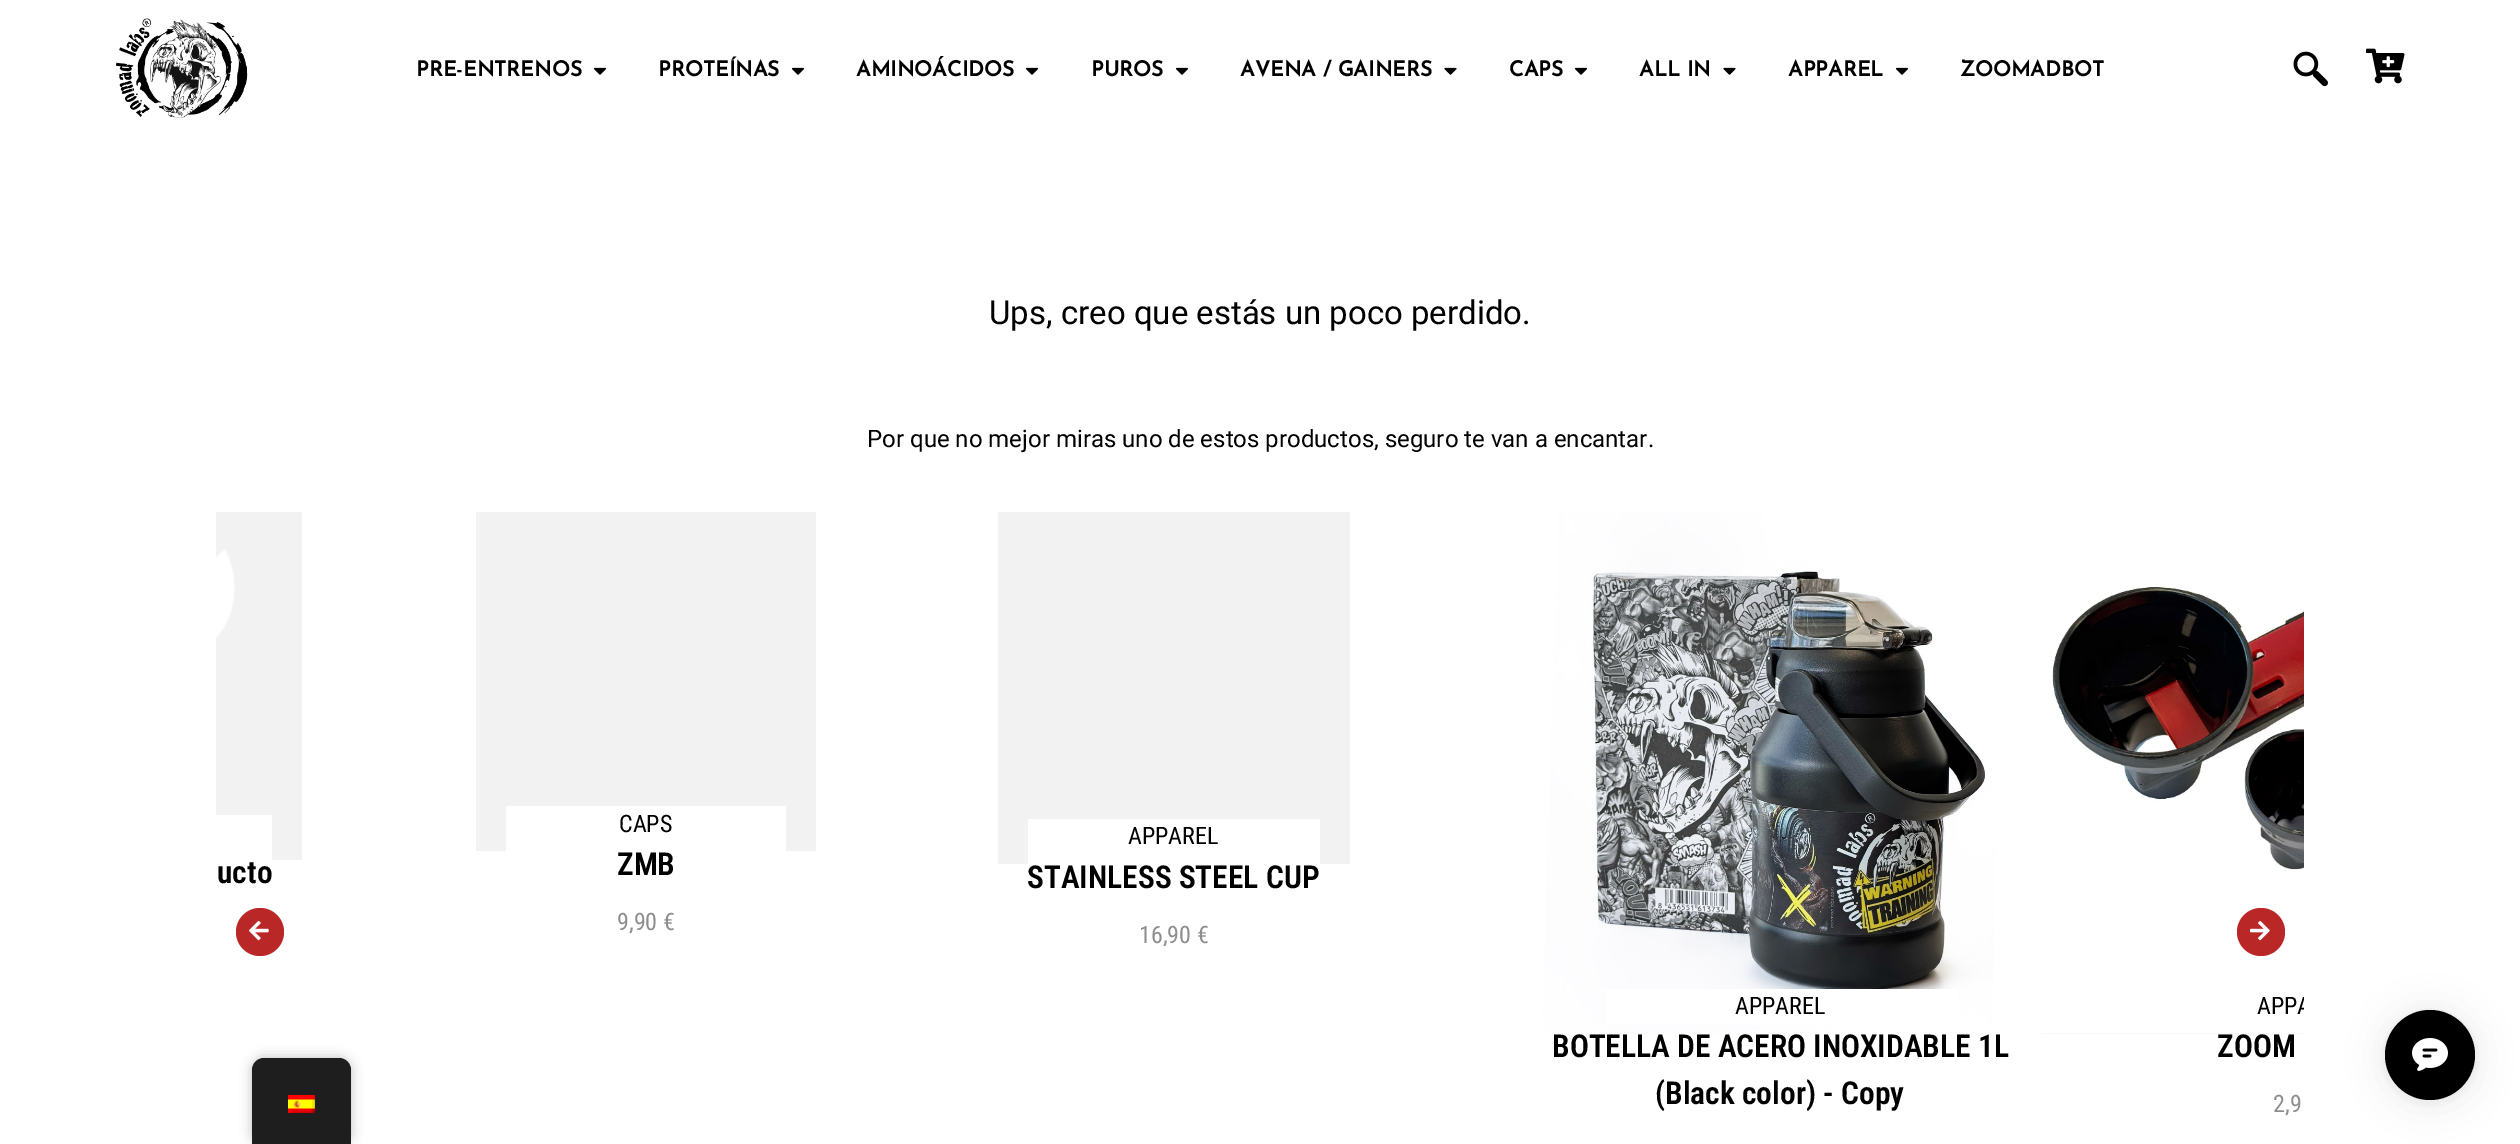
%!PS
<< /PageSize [2520 1144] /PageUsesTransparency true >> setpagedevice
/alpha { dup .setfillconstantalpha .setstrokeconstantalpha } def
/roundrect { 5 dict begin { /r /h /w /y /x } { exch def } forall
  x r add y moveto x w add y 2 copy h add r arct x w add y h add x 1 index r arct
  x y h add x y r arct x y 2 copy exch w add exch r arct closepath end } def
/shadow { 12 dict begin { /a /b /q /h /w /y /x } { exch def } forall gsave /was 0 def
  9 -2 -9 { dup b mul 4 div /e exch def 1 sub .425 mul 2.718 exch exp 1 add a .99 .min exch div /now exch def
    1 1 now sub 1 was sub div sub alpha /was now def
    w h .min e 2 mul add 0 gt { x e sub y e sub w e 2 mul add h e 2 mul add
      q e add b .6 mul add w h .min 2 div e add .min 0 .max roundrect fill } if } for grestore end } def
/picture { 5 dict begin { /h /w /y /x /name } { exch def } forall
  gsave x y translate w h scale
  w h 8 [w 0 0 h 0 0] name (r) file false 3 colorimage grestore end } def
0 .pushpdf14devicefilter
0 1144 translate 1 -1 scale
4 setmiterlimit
1 setgray
0 0 2520 1144 rectfill
(img1.rgb) 115 18 133 100 picture
/JosefinSans-Bold [21 0 0 -21 0 0] selectfont
0 setgray
416 76 moveto (PRE-ENTRENOS) show
(img2.rgb) 593 67 14 8 picture
658 76 moveto (PROTEÍNAS) show
(img2.rgb) 791 67 14 8 picture
856 76 moveto (AMINOÁCIDOS) show
(img2.rgb) 1025 67 14 8 picture
1091 76 moveto (PUROS) show
(img2.rgb) 1175 67 14 8 picture
1240 76 moveto (AVENA / GAINERS) show
(img3.rgb) 1444 67 13 8 picture
1509 76 moveto (CAPS) show
(img2.rgb) 1574 67 14 8 picture
1639 76 moveto (ALL IN) show
(img3.rgb) 1723 67 13 8 picture
1788 76 moveto (APPAREL) show
(img2.rgb) 1895 67 14 8 picture
1960 76 moveto (ZOOMADBOT) show
(img4.rgb) 2293 51 35 36 picture
(img5.rgb) 2366 48 39 36 picture
/Roboto-Regular [33 0 0 -33 0 0] selectfont
989 324 moveto (Ups, creo que estás un poco perdido.) show
/Roboto-Regular [24 0 0 -24 0 0] selectfont
867 447 moveto (Por que no mejor miras uno de estos productos, seguro te van a encantar.) show
0.949 setgray
216 512 86 348 rectfill
(img6.rgb) 216 549 19 89 picture
1 setgray
216 815 56 45 rectfill
/RobotoCondensed-SemiBold [31.5 0 0 -31.5 0 0] selectfont
0 setgray
217 883 moveto (ucto) show
0.949 setgray
476 512 340 339 rectfill
1 setgray
506 806 280 45 rectfill
/RobotoCondensed-Regular [24 0 0 -24 0 0] selectfont
0 setgray
619 832 moveto (CAPS) show
/RobotoCondensed-SemiBold [31.5 0 0 -31.5 0 0] selectfont
617 875 moveto (ZMB) show
/RobotoCondensed-Regular [24 0 0 -24 0 0] selectfont
0.553 setgray
617 930 moveto (9,90 €) show
0.949 setgray
998 512 352 352 rectfill
1 setgray
1028 819 292 45 rectfill
0 setgray
1128 844 moveto (APPAREL) show
/RobotoCondensed-SemiBold [31.5 0 0 -31.5 0 0] selectfont
1027 888 moveto (STAINLESS STEEL CUP) show
/RobotoCondensed-Regular [24 0 0 -24 0 0] selectfont
0.553 setgray
1139 943 moveto (16,90 €) show
(img7.rgb) 1520 512 522 522 picture
1 setgray
1607 989 351 36 rectfill
0 setgray
1735 1014 moveto (APPAREL) show
/RobotoCondensed-SemiBold [31.5 0 0 -31.5 0 0] selectfont
1552 1057 moveto (BOTELLA DE ACERO INOXIDABLE 1L) show
1655 1104 moveto (\(Black color\) - Copy) show
0.949 setgray
2042 1033 30 1 rectfill
(img8.rgb) 2042 512 262 522 picture
gsave
2042 512 262 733 rectclip
/RobotoCondensed-Regular [24 0 0 -24 0 0] selectfont
0 setgray
2257 1014 moveto (APPA) show
grestore
0 setgray
2217 1057 moveto (ZOOM) show
/RobotoCondensed-Regular [24 0 0 -24 0 0] selectfont
0.553 setgray
2273 1112 moveto (2,9) show
0.725 0.153 0.153 setrgbcolor
newpath 260 932 24 0 360 arc closepath fill
(img9.rgb) 249 921 20 20 picture
newpath 2261 932 24 0 360 arc closepath fill
(img10.rgb) 2250 921 20 20 picture
0 setgray
2385 1013 90 90 45 18 0.08 shadow
2385 1011 90 90 45 4.5 0.06 shadow
newpath 2430 1055 45 0 360 arc closepath fill
(img11.rgb) 2412 1038 36 33 picture
252 1058 99 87 12 6 0.25 shadow
0.118 setgray
newpath 264 1058 moveto 339 1058 lineto 345.5 1058 351 1063.5 351 1070 curveto 351 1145 lineto 252 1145 lineto 252 1070 lineto 252 1063.5 257.5 1058 264 1058 curveto closepath fill
(img12.rgb) 288 1095 27 18 picture
.poppdf14devicefilter showpage
